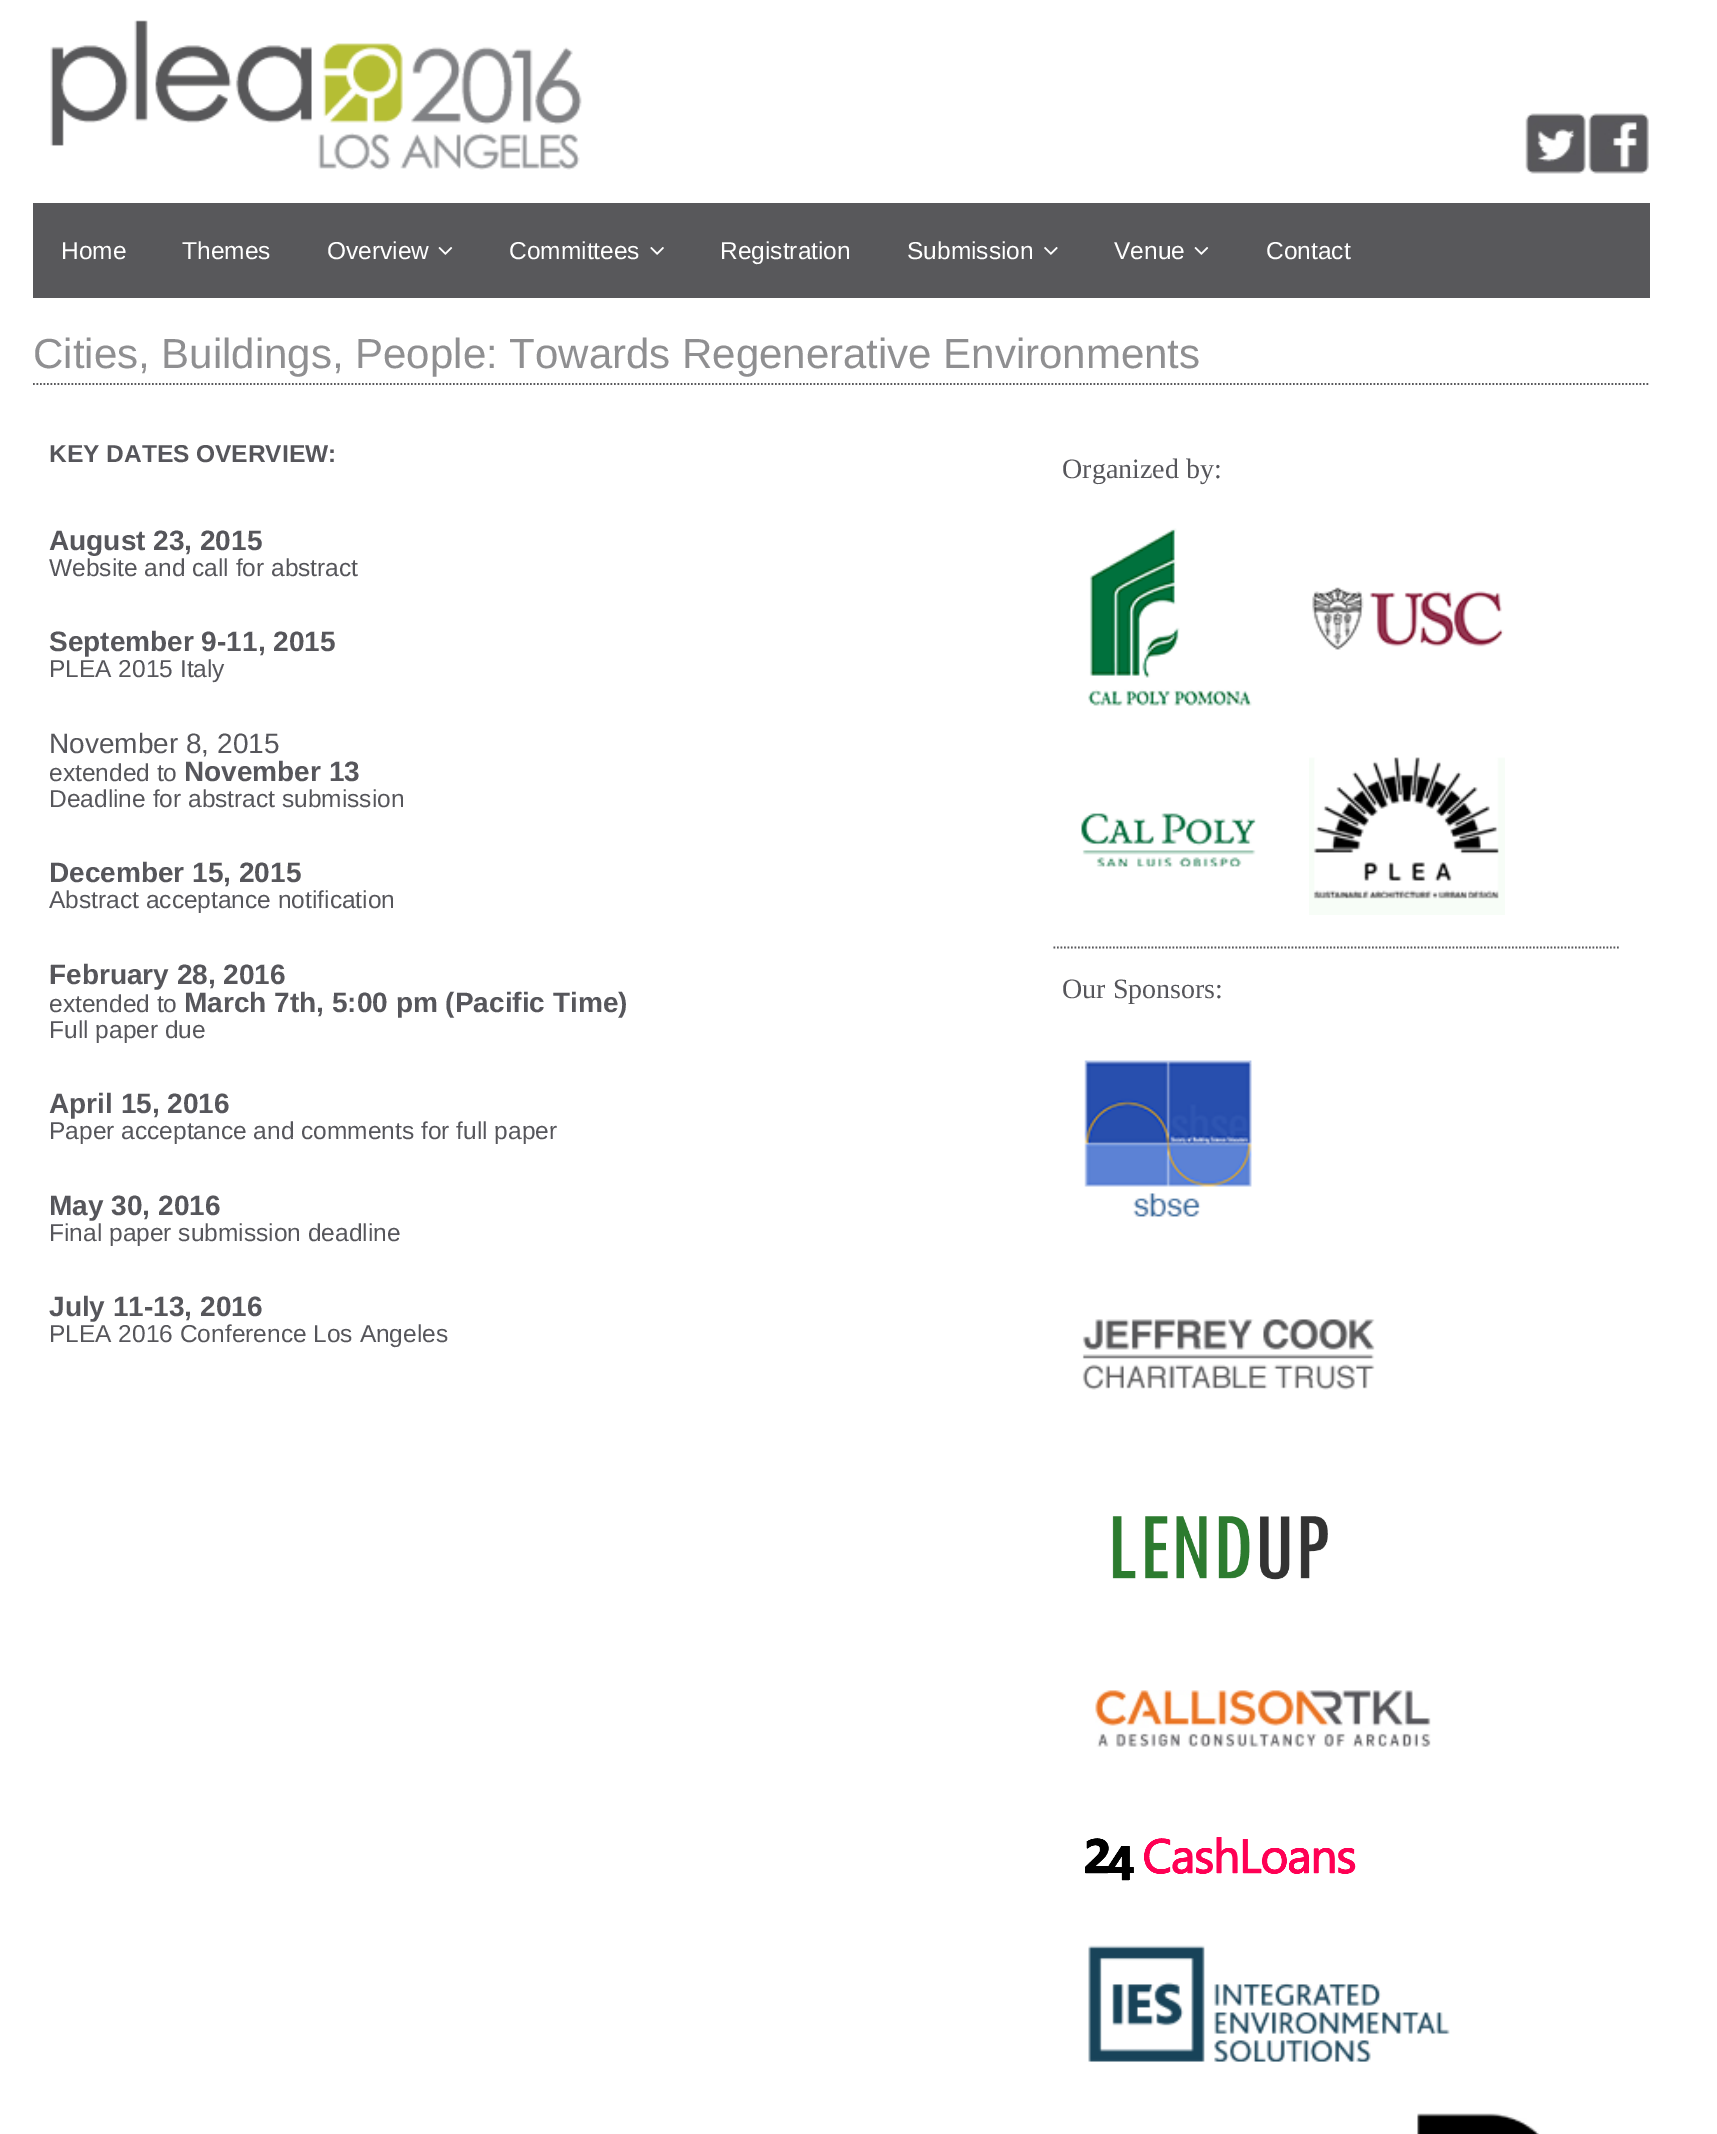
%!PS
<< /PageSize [1717 2134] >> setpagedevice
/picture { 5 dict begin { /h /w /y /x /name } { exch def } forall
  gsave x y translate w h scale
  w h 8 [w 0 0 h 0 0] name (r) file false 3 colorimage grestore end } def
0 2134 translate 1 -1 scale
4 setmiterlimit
1 setgray
0 0 1717 2134 rectfill
(img1.rgb) 50 20 532 150 picture
(img2.rgb) 1525 113 61 61 picture
(img3.rgb) 1588 113 61 61 picture
0.345 0.345 0.357 setrgbcolor
33 203 1617 95 rectfill
/LiberationSans-Regular [24.5 0 0 -24.5 0 0] selectfont
1 setgray
61 259 moveto (Home) show
182 259 moveto (Themes) show
327 259 moveto (Overview) show
(img4.rgb) 438 247 15 8 picture
509 259 moveto (Committees) show
(img5.rgb) 650 247 14 8 picture
720 259 moveto (Registration) show
907 259 moveto (Submission) show
(img6.rgb) 1044 247 14 8 picture
1114 259 moveto (Venue) show
(img4.rgb) 1194 247 15 8 picture
1266 259 moveto (Contact) show
0.345 0.345 0.357 setrgbcolor
1.8 setlinewidth
[1.75 1.75] 0 setdash
newpath 33 384 moveto 1650 384 lineto stroke
/LiberationSans-Regular [42 0 0 -42 0 0] selectfont
0.561 0.561 0.569 setrgbcolor
33 368 moveto (Cities, Buildings, People: Towards Regenerative Environments) show
/LiberationSans-Bold [24.5 0 0 -24.5 0 0] selectfont
0.337 0.337 0.357 setrgbcolor
49 462 moveto (KEY DATES OVERVIEW:) show
/LiberationSans-Bold [28 0 0 -28 0 0] selectfont
49 550 moveto (August 23, 2015) show
/LiberationSans-Regular [24.5 0 0 -24.5 0 0] selectfont
49 576 moveto (Website and call for abstract) show
/LiberationSans-Bold [28 0 0 -28 0 0] selectfont
49 651 moveto (September 9-11, 2015) show
/LiberationSans-Regular [24.5 0 0 -24.5 0 0] selectfont
49 677 moveto (PLEA 2015 Italy) show
/LiberationSans-Regular [28 0 0 -28 0 0] selectfont
49 753 moveto (November 8, 2015) show
/LiberationSans-Regular [24.5 0 0 -24.5 0 0] selectfont
49 781 moveto (extended to) show
/LiberationSans-Bold [28 0 0 -28 0 0] selectfont
184 781 moveto (November 13) show
/LiberationSans-Regular [24.5 0 0 -24.5 0 0] selectfont
49 807 moveto (Deadline for abstract submission) show
/LiberationSans-Bold [28 0 0 -28 0 0] selectfont
49 882 moveto (December 15, 2015) show
/LiberationSans-Regular [24.5 0 0 -24.5 0 0] selectfont
49 908 moveto (Abstract acceptance notification) show
/LiberationSans-Bold [28 0 0 -28 0 0] selectfont
49 984 moveto (February 28, 2016) show
/LiberationSans-Regular [24.5 0 0 -24.5 0 0] selectfont
49 1012 moveto (extended to) show
/LiberationSans-Bold [28 0 0 -28 0 0] selectfont
184 1012 moveto (March 7th, 5:00 pm \(Pacific Time\)) show
/LiberationSans-Regular [24.5 0 0 -24.5 0 0] selectfont
49 1038 moveto (Full paper due) show
/LiberationSans-Bold [28 0 0 -28 0 0] selectfont
49 1113 moveto (April 15, 2016) show
/LiberationSans-Regular [24.5 0 0 -24.5 0 0] selectfont
49 1139 moveto (Paper acceptance and comments for full paper) show
/LiberationSans-Bold [28 0 0 -28 0 0] selectfont
49 1215 moveto (May 30, 2016) show
/LiberationSans-Regular [24.5 0 0 -24.5 0 0] selectfont
49 1241 moveto (Final paper submission deadline) show
/LiberationSans-Bold [28 0 0 -28 0 0] selectfont
49 1316 moveto (July 11-13, 2016) show
/LiberationSans-Regular [24.5 0 0 -24.5 0 0] selectfont
49 1342 moveto (PLEA 2016 Conference Los Angeles) show
/LiberationSerif-Regular [28 0 0 -28 0 0] selectfont
1062 478 moveto (Organized by:) show
(img7.rgb) 1088 528 164 178 picture
(img8.rgb) 1312 587 192 63 picture
(img9.rgb) 1081 813 175 54 picture
(img10.rgb) 1309 757 196 158 picture
0.345 0.345 0.357 setrgbcolor
newpath 1053.5 947.5 moveto 1619 947.5 lineto stroke
0.337 0.337 0.357 setrgbcolor
1062 998 moveto (Our Sponsors:) show
(img11.rgb) 1084 1060 168 157 picture
(img12.rgb) 1082 1319 293 71 picture
(img13.rgb) 1112 1516 216 64 picture
(img14.rgb) 1095 1690 336 57 picture
(img15.rgb) 1085 1837 271 44 picture
(img16.rgb) 1088 1945 362 117 picture
(img17.rgb) 1417 2113 122 21 picture
showpage
